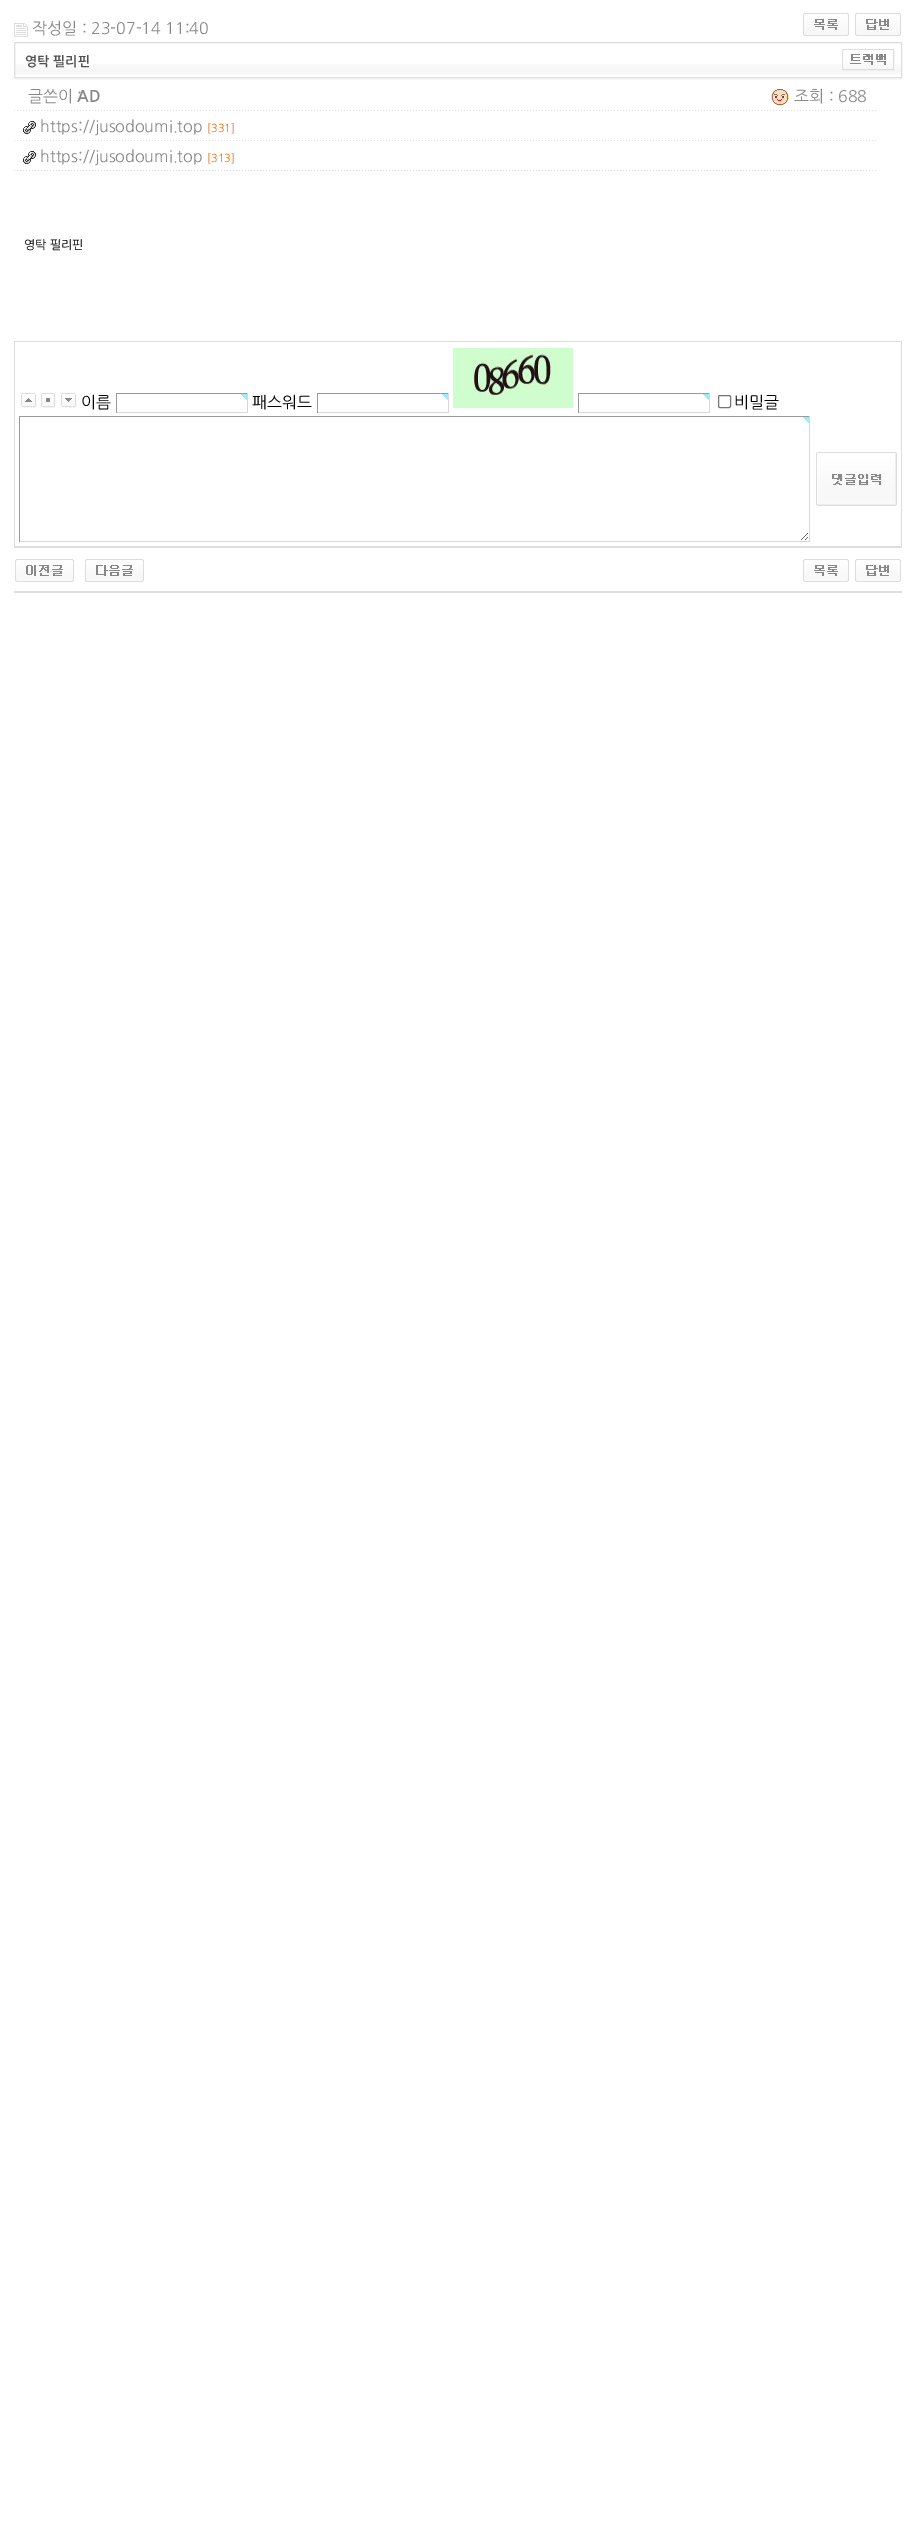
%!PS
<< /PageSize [916 2526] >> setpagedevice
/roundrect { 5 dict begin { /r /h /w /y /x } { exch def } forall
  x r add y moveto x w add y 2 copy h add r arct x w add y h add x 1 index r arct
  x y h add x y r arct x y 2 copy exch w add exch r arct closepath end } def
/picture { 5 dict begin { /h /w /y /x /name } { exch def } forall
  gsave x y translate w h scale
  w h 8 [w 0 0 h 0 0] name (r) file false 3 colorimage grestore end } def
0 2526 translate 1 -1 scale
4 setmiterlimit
1 setgray
0 0 916 2526 rectfill
(img1.rgb) 14 23 14 14 picture
/NanumGothic-Regular [16 0 0 -16 0 0] selectfont
0.533 setgray
32 34 moveto (작성일 : 23-07-14 11:40) show
(img2.rgb) 803 13 46 23 picture
(img3.rgb) 855 13 46 23 picture
(img4.rgb) 15 64 886 11 picture
0.867 setgray
14.5 42.5 887 35 rectstroke
/NanumGothic-Bold [13 0 0 -13 0 0] selectfont
0.314 setgray
25 66 moveto (영탁 필리핀) show
(img5.rgb) 842 49 53 22 picture
(img6.rgb) 14 78 888 2 picture
(img7.rgb) 14 110 862 1 picture
/NanumGothic-Regular [16 0 0 -16 0 0] selectfont
0.533 setgray
28 102 moveto -1 0 32 (글쓴이 :) widthshow
/NanumGothic-Bold [16 0 0 -16 0 0] selectfont
77 102 moveto (AD) show
(img8.rgb) 771 89 18 17 picture
/NanumGothic-Regular [16 0 0 -16 0 0] selectfont
794 102 moveto (조회 : 688) show
(img7.rgb) 14 140 862 1 picture
(img9.rgb) 23 121 13 13 picture
40 132 moveto (https://jusodoumi.top) show
/NanumGothic-Regular [11 0 0 -11 0 0] selectfont
1 0.4 0 setrgbcolor
207 132 moveto ([331]) show
(img7.rgb) 14 170 862 1 picture
(img9.rgb) 23 151 13 13 picture
/NanumGothic-Regular [16 0 0 -16 0 0] selectfont
0.533 setgray
40 162 moveto (https://jusodoumi.top) show
/NanumGothic-Regular [11 0 0 -11 0 0] selectfont
1 0.4 0 setrgbcolor
207 162 moveto ([313]) show
/NanumGothic-Regular [12 0 0 -12 0 0] selectfont
0 setgray
24 249 moveto (영탁 필리핀) show
0.867 setgray
14 341 888 207 rectfill
1 setgray
15 342 886 204 rectfill
(img10.rgb) 21 393 16 15 picture
(img11.rgb) 41 393 15 15 picture
(img12.rgb) 61 393 16 15 picture
/NanumGothic-Regular [16 0 0 -16 0 0] selectfont
0 setgray
81 408 moveto (이름) show
(img13.rgb) 241 394 6 6 picture
0.604 setgray
116 393 132 1 rectfill
0.847 setgray
247 393 1 20 rectfill
116 412 132 1 rectfill
0.604 setgray
116 393 1 20 rectfill
0 setgray
252 408 moveto (패스워드) show
(img13.rgb) 442 394 6 6 picture
0.604 setgray
317 393 132 1 rectfill
0.847 setgray
448 393 1 20 rectfill
317 412 132 1 rectfill
0.604 setgray
317 393 1 20 rectfill
(img14.rgb) 453 348 120 60 picture
(img13.rgb) 703 394 6 6 picture
578 393 132 1 rectfill
0.847 setgray
709 393 1 20 rectfill
578 412 132 1 rectfill
0.604 setgray
578 393 1 20 rectfill
0.463 setgray
718.5 395.5 12 12 1.5 roundrect stroke
0 setgray
734 408 moveto (비밀글) show
(img15.rgb) 801 417 8 123 picture
0.604 setgray
19 416 791 1 rectfill
0.847 setgray
809 416 1 126 rectfill
19 541 791 1 rectfill
0.604 setgray
19 416 1 126 rectfill
(img16.rgb) 816 452 81 54 picture
(img17.rgb) 15 559 59 23 picture
(img18.rgb) 85 559 59 23 picture
(img2.rgb) 803 559 46 23 picture
(img3.rgb) 855 559 46 23 picture
0.871 setgray
14 591 888 2 rectfill
showpage
